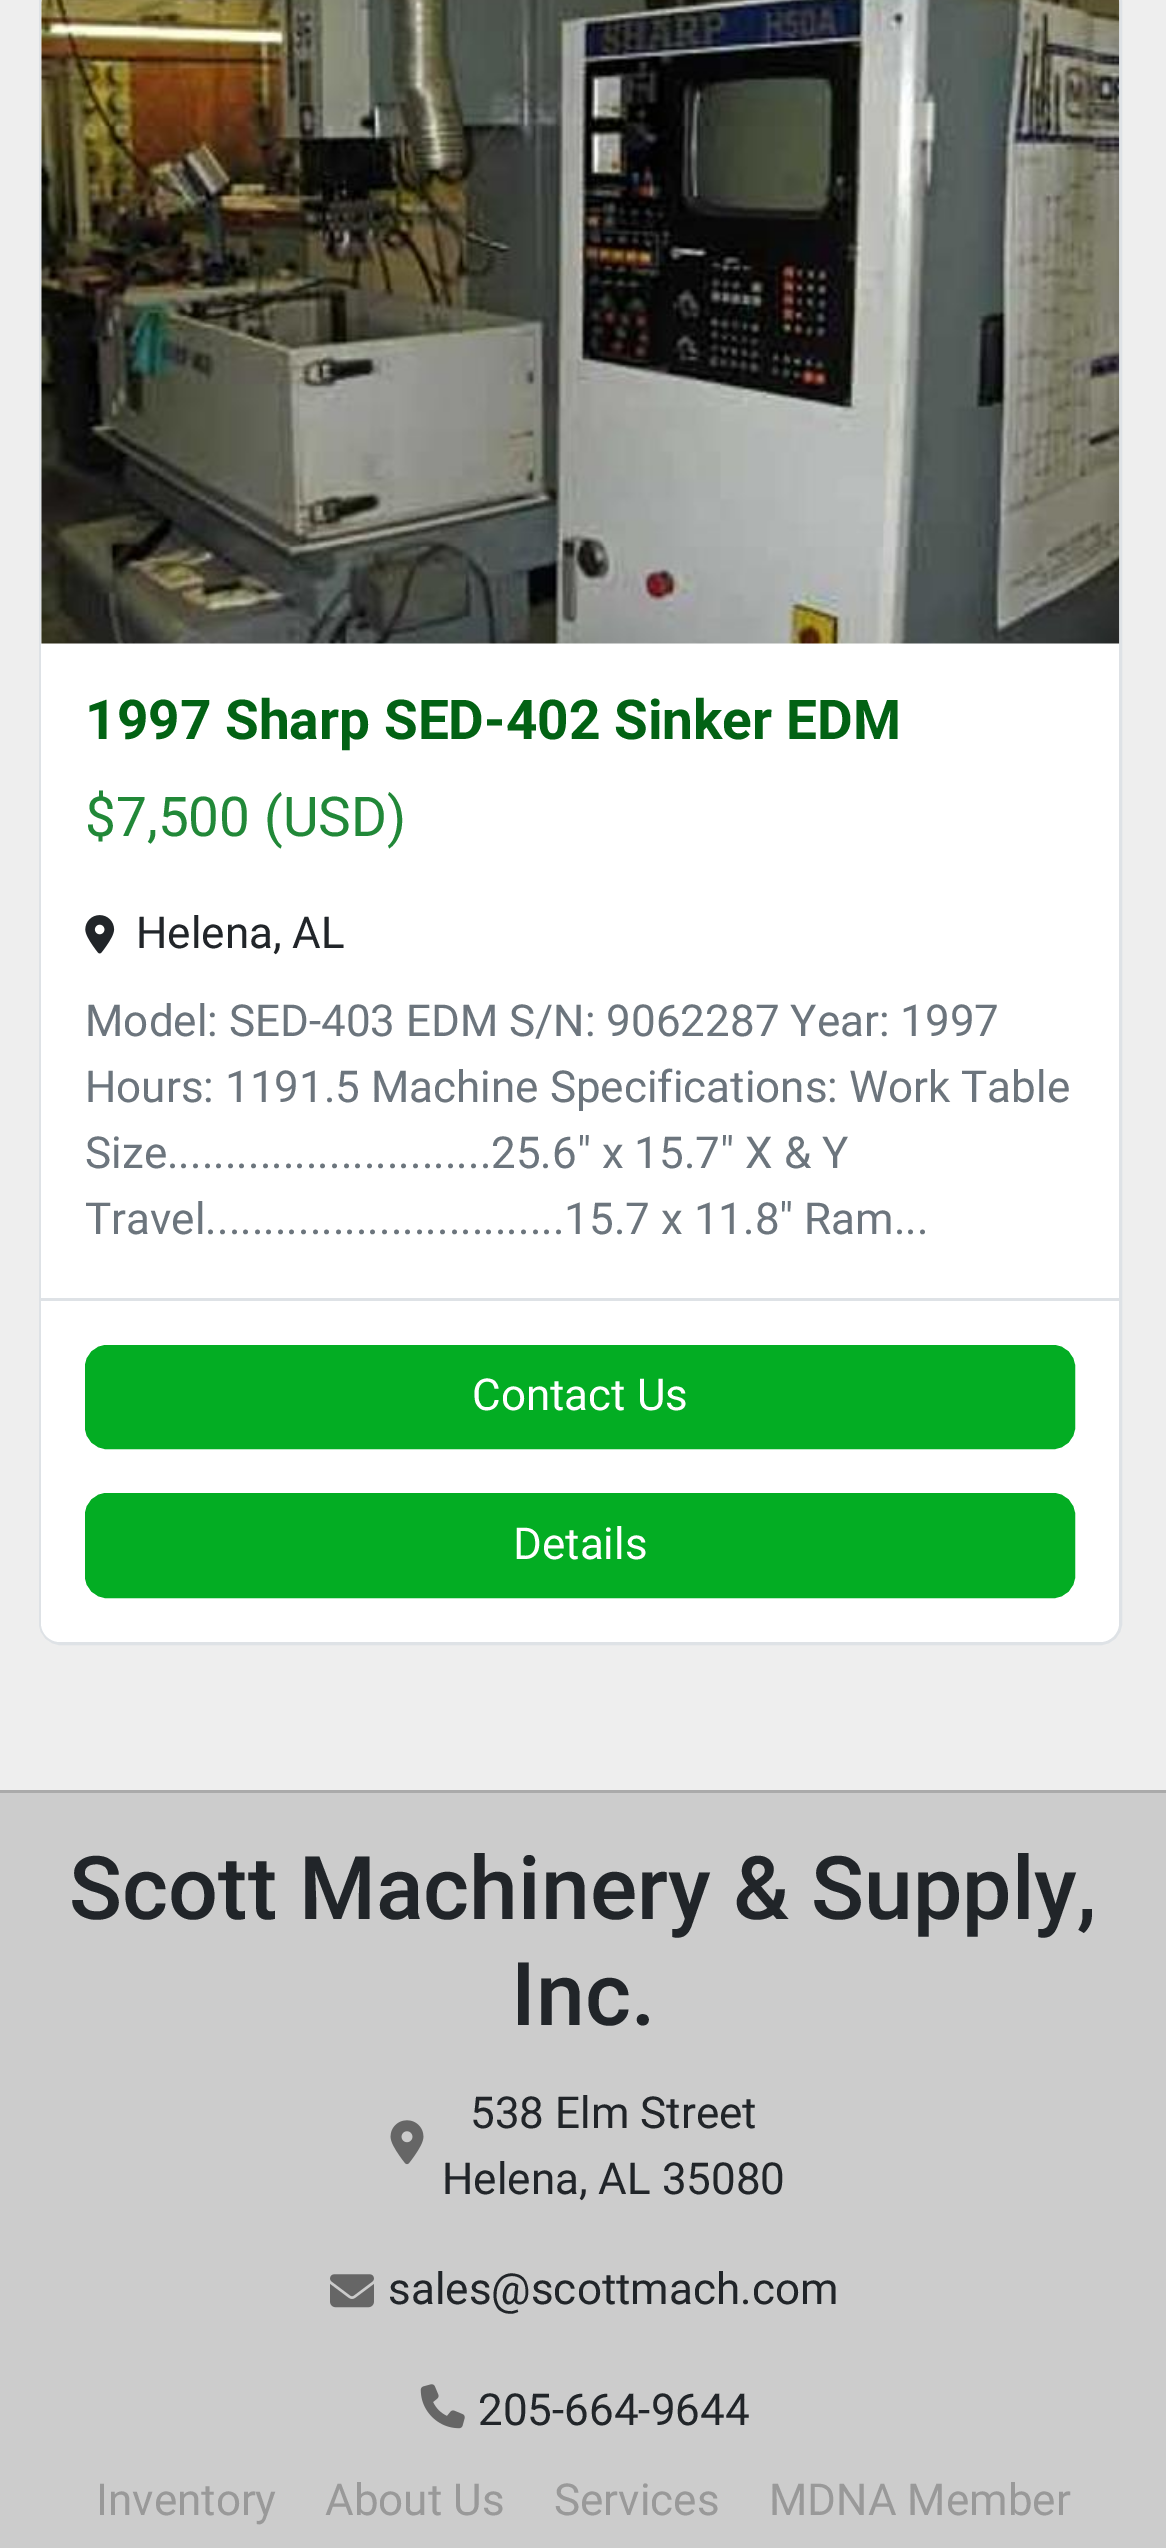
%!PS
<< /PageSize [1166 2548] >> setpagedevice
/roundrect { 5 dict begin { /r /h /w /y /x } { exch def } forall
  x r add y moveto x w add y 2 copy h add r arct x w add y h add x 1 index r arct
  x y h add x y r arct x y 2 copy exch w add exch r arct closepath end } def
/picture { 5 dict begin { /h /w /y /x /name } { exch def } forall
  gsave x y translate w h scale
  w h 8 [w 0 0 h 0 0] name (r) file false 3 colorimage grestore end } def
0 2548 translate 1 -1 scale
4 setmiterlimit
0.933 setgray
0 0 1166 2548 rectfill
0.871 0.886 0.902 setrgbcolor
3 setlinewidth
40.5 -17.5 1080 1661 20.5 roundrect stroke
1 setgray
newpath 60 -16 moveto 1100 -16 lineto 1110.5 -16 1119 -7.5 1119 3 curveto 1119 644 lineto 41 644 lineto 41 3 lineto 41 -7.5 49.5 -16 60 -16 curveto closepath fill
(img1.rgb) 41 0 1079 644 picture
41 644 1078 654 rectfill
/Roboto-Bold [55 0 0 -55 0 0] selectfont
0.008 0.384 0.078 setrgbcolor
85 739 moveto (1997 Sharp SED-402 Sinker EDM) show
/Roboto-Regular [55 0 0 -55 0 0] selectfont
0.129 0.533 0.22 setrgbcolor
85 836 moveto ($7,500 \(USD\)) show
(img2.rgb) 85 915 30 39 picture
/Roboto-Regular [44 0 0 -44 0 0] selectfont
0.129 0.145 0.161 setrgbcolor
136 948 moveto (Helena, AL) show
0.424 0.459 0.49 setrgbcolor
85 1036 moveto (Model: SED-403 EDM S/N: 9062287 Year: 1997) show
85 1102 moveto (Hours: 1191.5 Machine Specifications: Work Table) show
85 1168 moveto (Size............................25.6" x 15.7" X & Y) show
85 1234 moveto (Travel...............................15.7 x 11.8" Ram...) show
1 setgray
newpath 41 1298 moveto 1119 1298 lineto 1119 1623 lineto 1119 1633.5 1110.5 1642 1100 1642 curveto 60 1642 lineto 49.5 1642 41 1633.5 41 1623 curveto closepath fill
0.871 0.886 0.902 setrgbcolor
41 1298 1078 3 rectfill
0.012 0.678 0.137 setrgbcolor
86.5 1346.5 987 101 20.5 roundrect gsave fill grestore
stroke
1 setgray
472 1410 moveto (Contact Us) show
0.012 0.678 0.137 setrgbcolor
86.5 1494.5 987 102 20.5 roundrect gsave fill grestore
stroke
1 setgray
513 1559 moveto (Details) show
0.8 setgray
0 1793 1166 755 rectfill
0.667 setgray
0 1790 1166 3 rectfill
/Roboto-Medium [88 0 0 -88 0 0] selectfont
0.129 0.145 0.161 setrgbcolor
69 1919 moveto (Scott Machinery & Supply,) show
511 2025 moveto (Inc.) show
(img3.rgb) 390 2120 34 45 picture
/Roboto-Regular [44 0 0 -44 0 0] selectfont
470 2128 moveto (538 Elm Street) show
442 2194 moveto (Helena, AL 35080) show
(img4.rgb) 330 2274 44 34 picture
388 2304 moveto (sales@scottmach.com) show
(img5.rgb) 420 2384 45 45 picture
478 2425 moveto (205-664-9644) show
0.6 setgray
96 2515 moveto (Inventory) show
325 2515 moveto (About Us) show
554 2515 moveto (Services) show
769 2515 moveto (MDNA Member) show
showpage
